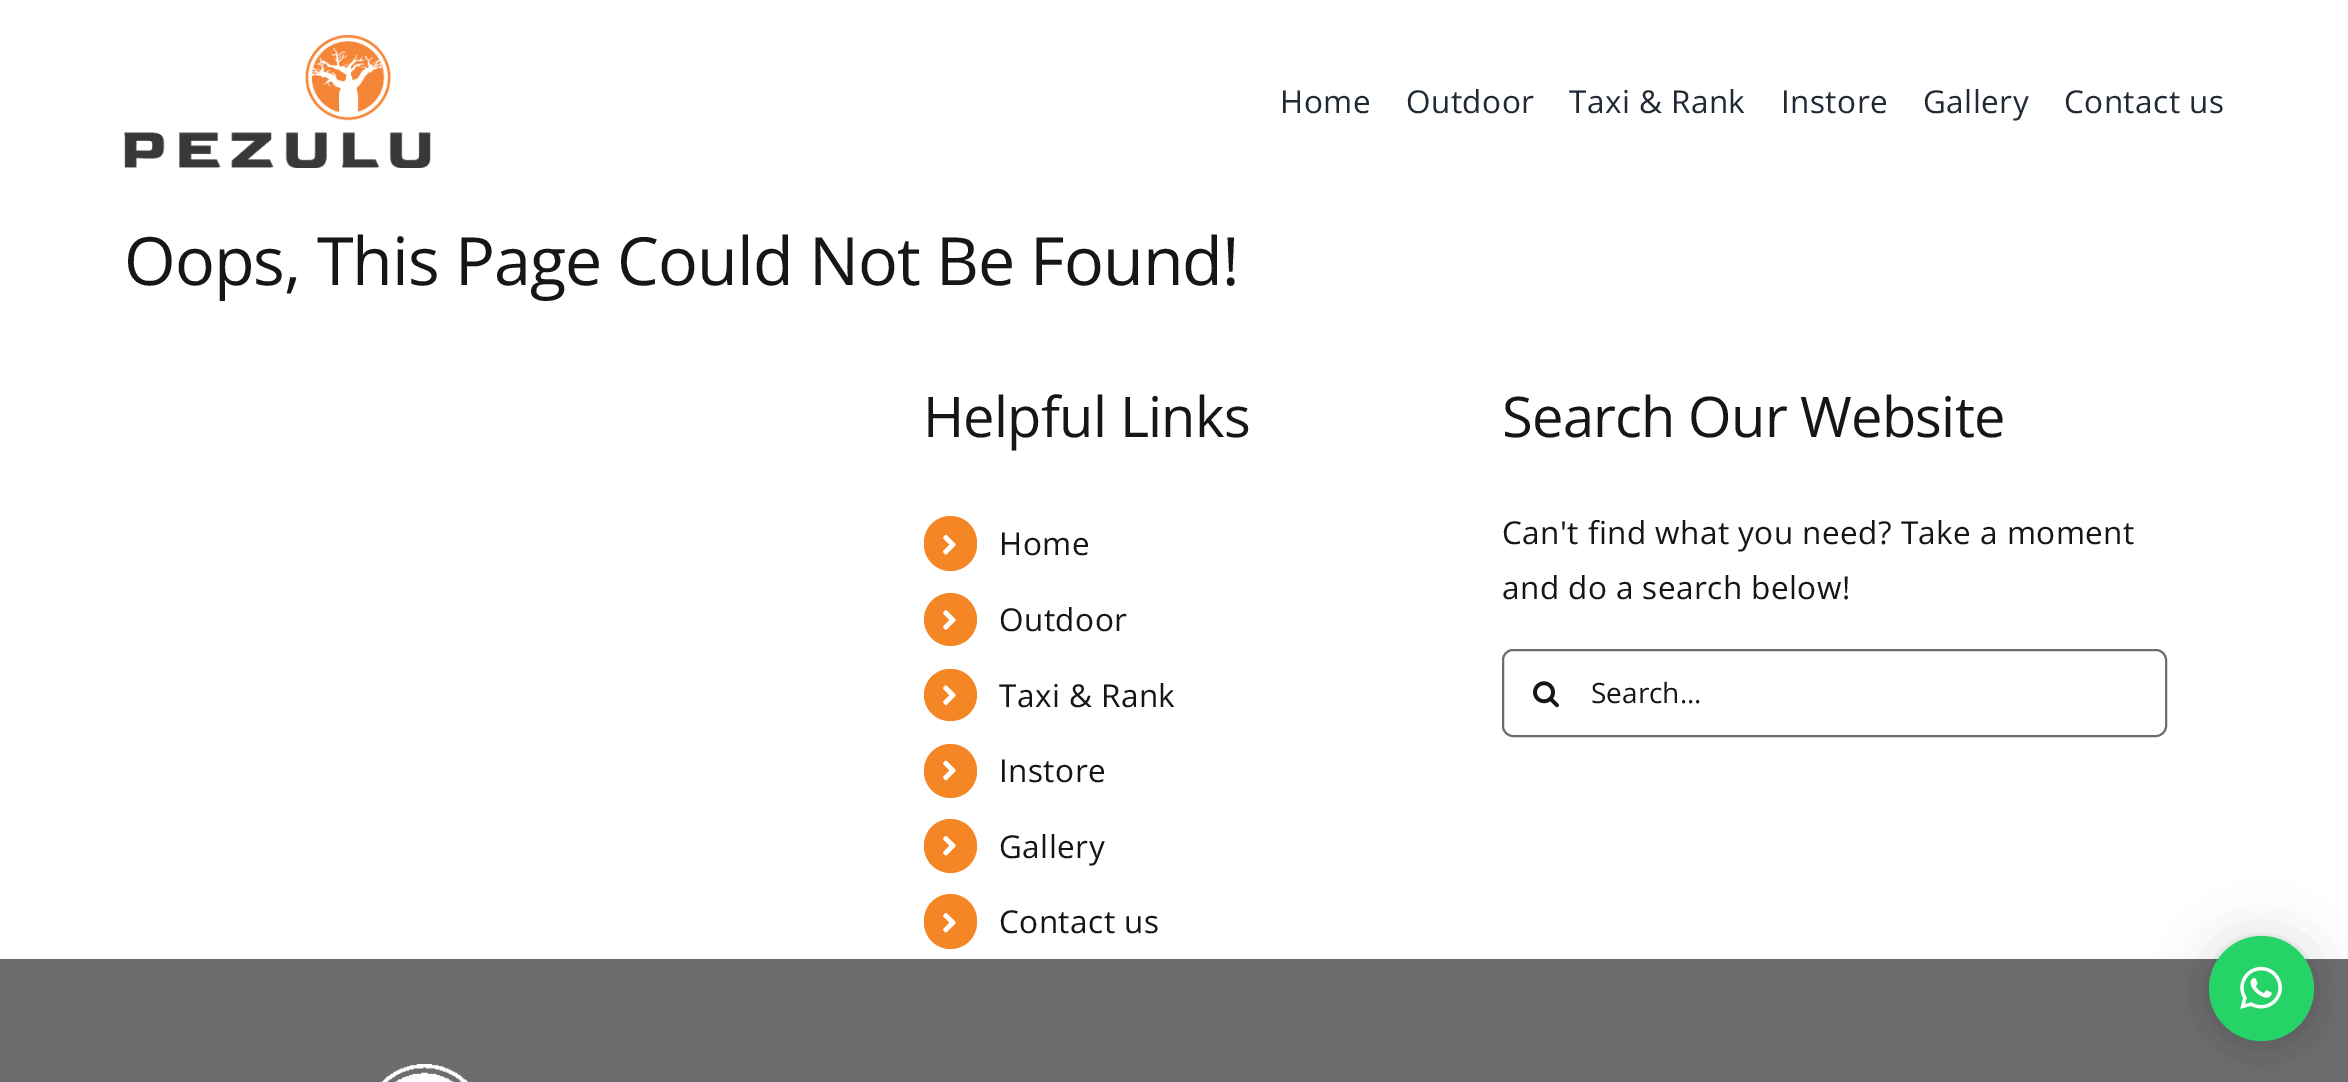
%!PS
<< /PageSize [2348 1082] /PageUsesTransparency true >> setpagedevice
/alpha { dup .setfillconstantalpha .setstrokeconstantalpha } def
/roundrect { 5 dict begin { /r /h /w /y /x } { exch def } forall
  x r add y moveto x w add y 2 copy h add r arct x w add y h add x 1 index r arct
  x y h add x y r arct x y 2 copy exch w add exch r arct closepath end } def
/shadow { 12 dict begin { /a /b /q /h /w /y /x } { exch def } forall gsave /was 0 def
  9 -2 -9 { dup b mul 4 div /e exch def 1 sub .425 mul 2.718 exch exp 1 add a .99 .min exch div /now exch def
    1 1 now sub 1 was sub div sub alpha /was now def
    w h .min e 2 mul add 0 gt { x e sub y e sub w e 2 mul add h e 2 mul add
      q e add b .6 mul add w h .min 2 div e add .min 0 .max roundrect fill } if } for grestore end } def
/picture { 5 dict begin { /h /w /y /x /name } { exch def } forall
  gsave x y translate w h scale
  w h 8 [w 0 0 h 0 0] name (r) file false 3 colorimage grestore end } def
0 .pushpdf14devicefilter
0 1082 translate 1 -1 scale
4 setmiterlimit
1 setgray
0 0 2348 1082 rectfill
(img1.rgb) 124 35 307 133 picture
/OpenSans-Regular [31.5 0 0 -31.5 0 0] selectfont
0.129 0.161 0.204 setrgbcolor
1280 113 moveto 0.45 0 (Home) ashow
1406 113 moveto 0.45 0 (Outdoor) ashow
1569 113 moveto 0.45 0 (Taxi & Rank) ashow
1781 113 moveto 0.45 0 (Instore) ashow
1923 113 moveto 0.45 0 (Gallery) ashow
2064 113 moveto 0.45 0 (Contact us) ashow
/OpenSans-Regular [66.5 0 0 -66.5 0 0] selectfont
0.078 0.086 0.09 setrgbcolor
124 285 moveto -1 0 (Oops, This Page Could Not Be Found!) ashow
/OpenSans-Regular [56 0 0 -56 0 0] selectfont
923 437 moveto -0.8 0 (Helpful Links) ashow
0.961 0.525 0.149 setrgbcolor
924 516 53 55 26.5 roundrect fill
(img2.rgb) 943 534 13 21 picture
/OpenSans-Regular [31.5 0 0 -31.5 0 0] selectfont
0.078 0.086 0.09 setrgbcolor
999 555 moveto 0.45 0 (Home) ashow
0.961 0.525 0.149 setrgbcolor
newpath 950.5 619.5 26.5 0 360 arc closepath fill
(img3.rgb) 943 610 13 20 picture
0.078 0.086 0.09 setrgbcolor
999 631 moveto 0.45 0 (Outdoor) ashow
0.961 0.525 0.149 setrgbcolor
924 669 53 52 26 roundrect fill
(img4.rgb) 943 685 13 20 picture
0.078 0.086 0.09 setrgbcolor
999 707 moveto 0.45 0 (Taxi & Rank) ashow
0.961 0.525 0.149 setrgbcolor
924 744 53 54 26.5 roundrect fill
(img5.rgb) 943 760 13 21 picture
0.078 0.086 0.09 setrgbcolor
999 782 moveto 0.45 0 (Instore) ashow
0.961 0.525 0.149 setrgbcolor
924 819 53 54 26.5 roundrect fill
(img2.rgb) 943 835 13 21 picture
0.078 0.086 0.09 setrgbcolor
999 858 moveto 0.45 0 (Gallery) ashow
0.961 0.525 0.149 setrgbcolor
924 894 53 55 26.5 roundrect fill
(img2.rgb) 943 912 13 21 picture
0.078 0.086 0.09 setrgbcolor
999 933 moveto 0.45 0 (Contact us) ashow
/OpenSans-Regular [56 0 0 -56 0 0] selectfont
1502 437 moveto -0.8 0 (Search Our Website) ashow
/OpenSans-Regular [31.5 0 0 -31.5 0 0] selectfont
1502 544 moveto 0.45 0 (Can't find what you need? Take a moment) ashow
1502 599 moveto 0.45 0 (and do a search below!) ashow
0.424 0.427 0.435 setrgbcolor
2 setlinewidth
1503 650 663 86 10 roundrect stroke
(img6.rgb) 1533 681 26 27 picture
/OpenSans-Regular [28 0 0 -28 0 0] selectfont
0.078 0.086 0.09 setrgbcolor
1591 703 moveto (Search...) show
0.424 0.427 0.435 setrgbcolor
0 959 2348 123 rectfill
(img7.rgb) 381 1064 88 18 picture
0 setgray
2209 940 105 105 52.5 28 0.16 shadow
2209 938 105 105 52.5 5 0.06 shadow
0.145 0.827 0.4 setrgbcolor
newpath 2261.5 988.5 52.5 0 360 arc closepath fill
(img8.rgb) 2240 966 42 43 picture
.poppdf14devicefilter showpage
